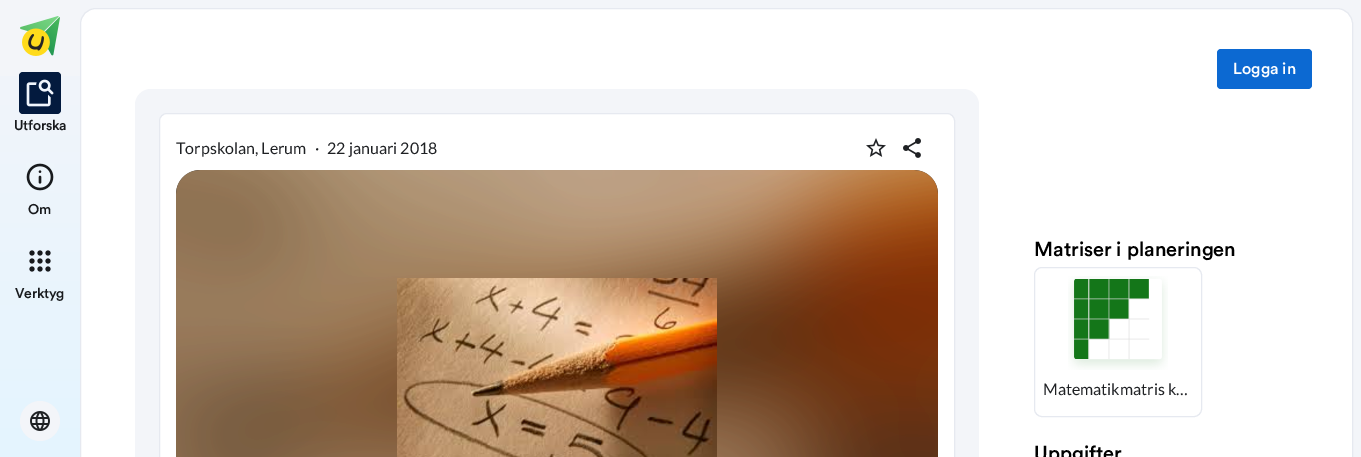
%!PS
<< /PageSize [1361 457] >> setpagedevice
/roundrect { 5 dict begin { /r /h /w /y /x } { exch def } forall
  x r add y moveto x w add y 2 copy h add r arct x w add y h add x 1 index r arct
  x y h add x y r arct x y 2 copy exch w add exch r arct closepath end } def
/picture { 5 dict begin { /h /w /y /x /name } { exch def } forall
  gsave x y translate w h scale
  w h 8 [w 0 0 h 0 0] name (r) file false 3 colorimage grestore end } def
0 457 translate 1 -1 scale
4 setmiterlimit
0.953 0.961 0.976 setrgbcolor
0 0 1361 457 rectfill
gsave newpath 0 76 moveto 80 76 lineto 80 457 lineto 0 457 lineto closepath clip newpath
<< /ShadingType 2 /ColorSpace /DeviceRGB /Coords [40 0 40 457] /Extend [true true] /Function << /FunctionType 2 /Domain [0 1] /C0 [0.953 0.961 0.976] /C1 [0.894 0.957 1] /N 1 >> >> shfill grestore
(img1.rgb) 20 16 40 40 picture
0.012 0.102 0.243 setrgbcolor
19 72 42 42 4 roundrect fill
(img2.rgb) 26 79 28 28 picture
/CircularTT-Medium [14 0 0 -14 0 0] selectfont
0.094 0.102 0.114 setrgbcolor
14 130 moveto -0.25 0 (Utforska) ashow
(img3.rgb) 26 163 28 28 picture
28 214 moveto -0.25 0 (Om) ashow
(img4.rgb) 29 250 22 22 picture
15 298 moveto -0.25 0 (Verktyg) ashow
0.953 0.961 0.976 setrgbcolor
newpath 40 421 20 0 360 arc closepath fill
(img5.rgb) 30 411 20 20 picture
1 setgray
80.5 8.5 1272 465 15.5 roundrect gsave fill grestore
0.902 0.914 0.941 setrgbcolor
stroke
0.047 0.412 0.824 setrgbcolor
1217 49 95 40 4 roundrect fill
/CircularTT-Medium [16 0 0 -16 0 0] selectfont
1 setgray
1233 74 moveto (Logga in) show
0.953 0.961 0.976 setrgbcolor
135 89 844 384 16 roundrect fill
1 setgray
159.5 113.5 795 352 7.5 roundrect gsave fill grestore
0.902 0.914 0.941 setrgbcolor
stroke
/Lato-Regular [16 0 0 -16 0 0] selectfont
0.122 0.129 0.141 setrgbcolor
176 154 moveto (Torpskolan, Lerum) show
315 154 moveto (·) show
327 154 moveto (22 januari 2018) show
(img6.rgb) 866 138 20 19 picture
(img7.rgb) 903 138 18 20 picture
0.067 setgray
176 170 762 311 24 roundrect fill
(img8.rgb) 176 170 762 287 picture
(img9.rgb) 397 278 320 179 picture
/CircularTT-Medium [20 0 0 -20 0 0] selectfont
0 setgray
1034 256 moveto (Matriser i planeringen) show
0.902 0.914 0.941 setrgbcolor
1034.5 267.5 167 149 7.5 roundrect stroke
(img10.rgb) 1068 276 100 94 picture
/Lato-Regular [16 0 0 -16 0 0] selectfont
0.122 0.129 0.141 setrgbcolor
1043 395 moveto (Matematikmatris k…) show
/CircularTT-Medium [20 0 0 -20 0 0] selectfont
0 setgray
1034 460 moveto (Uppgifter) show
showpage
